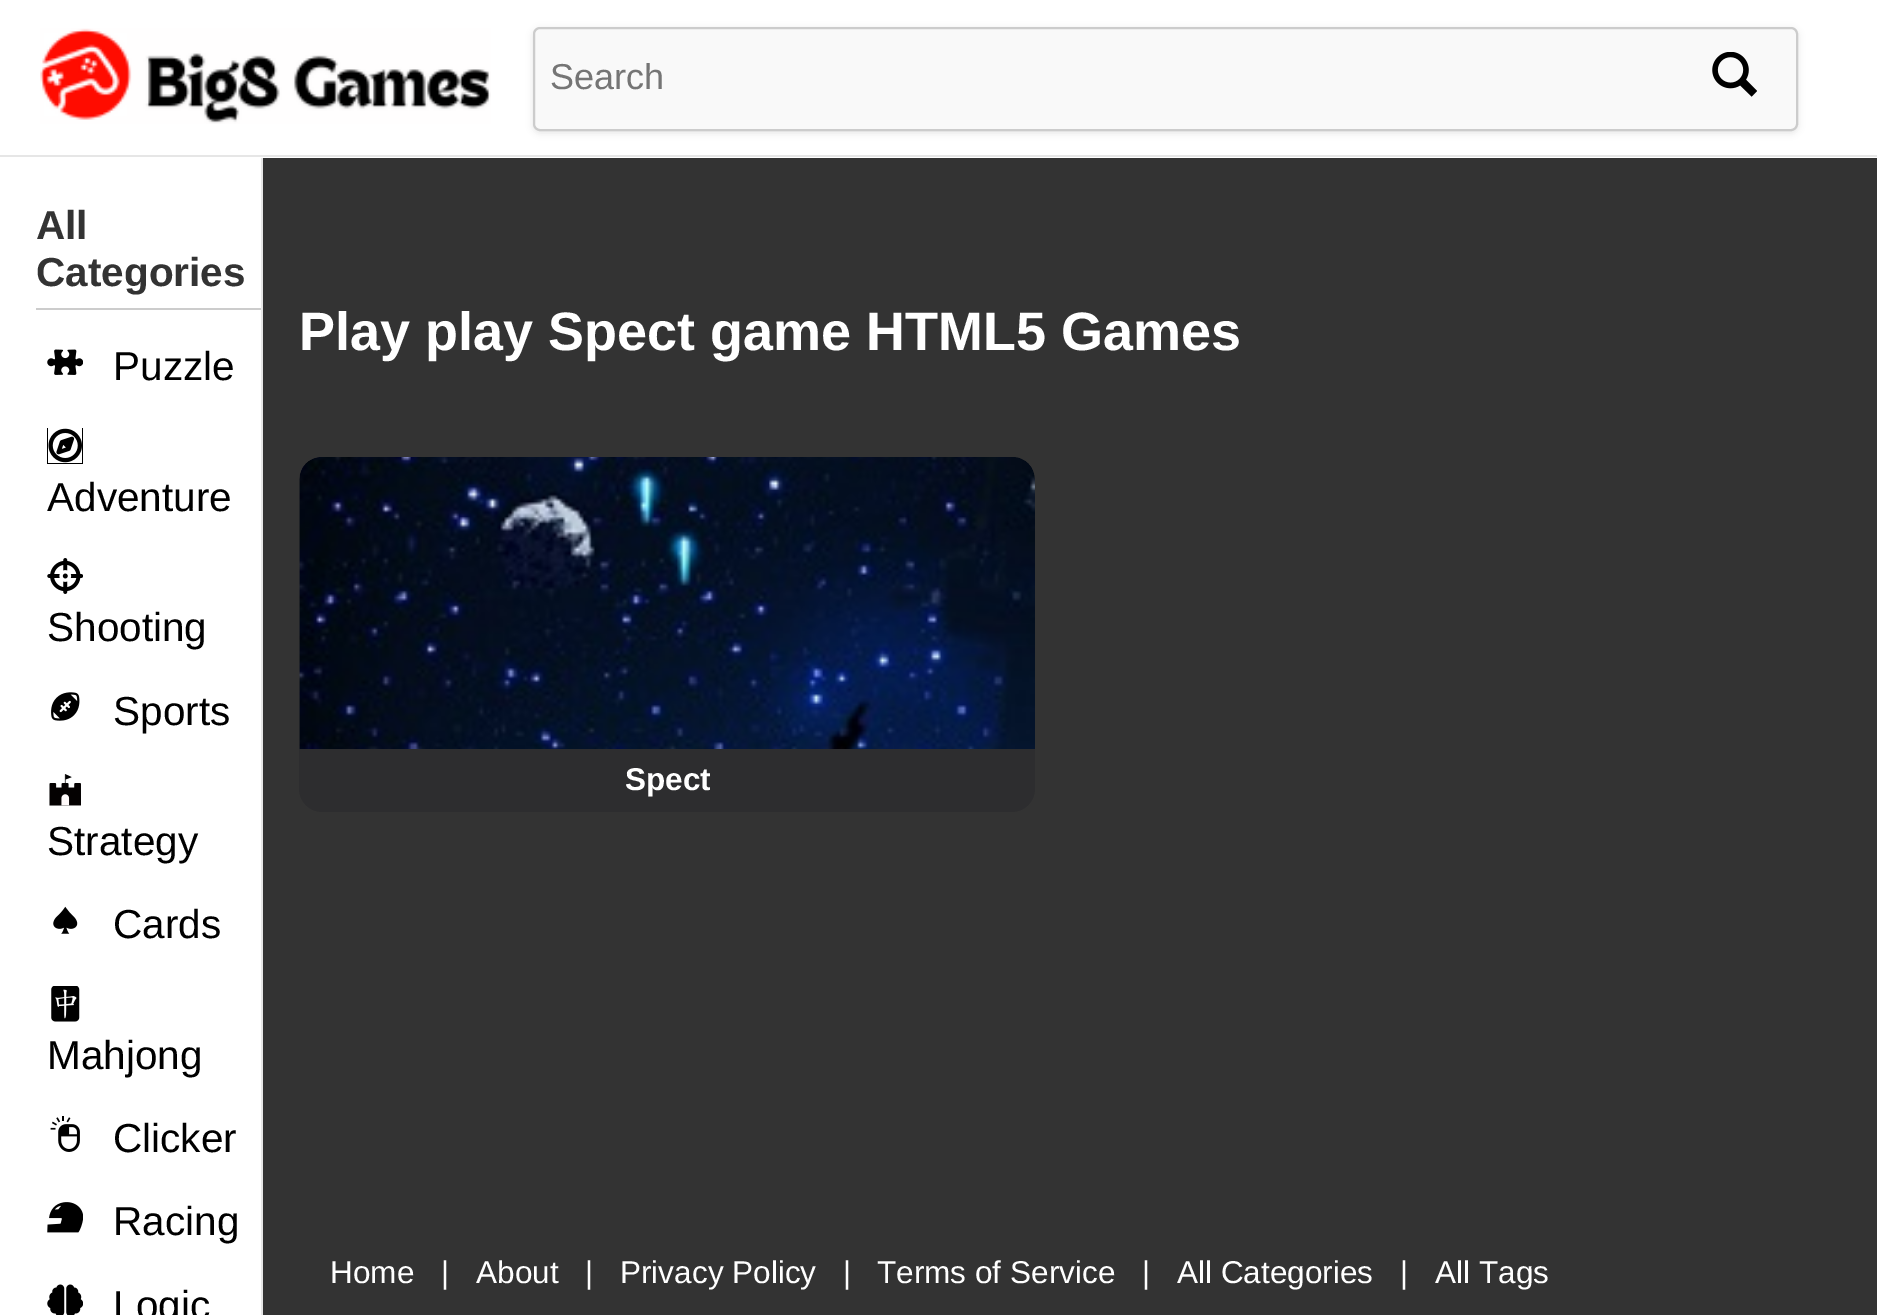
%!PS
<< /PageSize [1877 1315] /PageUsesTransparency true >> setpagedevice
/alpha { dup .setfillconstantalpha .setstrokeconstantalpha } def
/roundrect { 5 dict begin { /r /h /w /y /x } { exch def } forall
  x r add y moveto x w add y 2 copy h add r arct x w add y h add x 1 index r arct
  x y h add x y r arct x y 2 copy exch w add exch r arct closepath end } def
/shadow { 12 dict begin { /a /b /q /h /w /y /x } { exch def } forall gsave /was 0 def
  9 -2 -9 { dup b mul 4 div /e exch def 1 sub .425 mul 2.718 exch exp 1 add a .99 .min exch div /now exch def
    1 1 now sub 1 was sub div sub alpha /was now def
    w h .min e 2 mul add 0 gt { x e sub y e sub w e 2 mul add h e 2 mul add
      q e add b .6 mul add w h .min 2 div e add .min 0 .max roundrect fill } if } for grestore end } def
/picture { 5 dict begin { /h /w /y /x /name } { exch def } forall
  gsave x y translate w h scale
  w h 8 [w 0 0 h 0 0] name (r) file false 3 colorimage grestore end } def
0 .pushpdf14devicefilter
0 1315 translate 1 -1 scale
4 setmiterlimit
0.2 setgray
0 0 1877 1315 rectfill
1 setgray
0 0 1877 158 rectfill
0.902 setgray
0 155 1877 2 rectfill
(img1.rgb) 40 28 451 96 picture
0 setgray
533 29 1265 104 7 3.5 0.1 shadow
0.976 setgray
534 28 1263 102 6 roundrect gsave fill grestore
0.8 setgray
2 setlinewidth
stroke
/LiberationSans-Regular [36 0 0 -36 0 0] selectfont
0.459 setgray
550 89 moveto (Search) show
(img2.rgb) 1712 52 45 45 picture
1 setgray
0 158 261 1157 rectfill
0.902 setgray
261 158 2 1157 rectfill
0.8 setgray
36 308 225 2 rectfill
/LiberationSans-Bold [40.5 0 0 -40.5 0 0] selectfont
0.2 setgray
36 239 moveto (All) show
36 286 moveto (Categories) show
(img3.rgb) 47 349 36 26 picture
/LiberationSans-Regular [40.5 0 0 -40.5 0 0] selectfont
0 setgray
113 380 moveto (Puzzle) show
(img4.rgb) 47 428 36 36 picture
47 511 moveto (Adventure) show
(img5.rgb) 47 558 36 36 picture
47 641 moveto (Shooting) show
(img6.rgb) 51 692 29 29 picture
113 725 moveto (Sports) show
(img7.rgb) 49 774 32 32 picture
47 855 moveto (Strategy) show
(img8.rgb) 53 906 25 28 picture
113 938 moveto (Cards) show
(img9.rgb) 51 986 29 36 picture
47 1069 moveto (Mahjong) show
(img10.rgb) 50 1116 30 36 picture
113 1152 moveto (Clicker) show
(img11.rgb) 47 1202 36 31 picture
113 1235 moveto (Racing) show
(img12.rgb) 47 1284 36 31 picture
113 1319 moveto (Logic) show
/LiberationSans-Bold [54 0 0 -54 0 0] selectfont
1 setgray
299 350 moveto (Play play Spect game HTML5 Games) show
(img13.rgb) 299 457 736 292 picture
0.176 0.176 0.184 setrgbcolor
newpath 299 749 moveto 1035 749 lineto 1035 789 lineto 1035 801.5 1024.5 812 1012 812 curveto 322 812 lineto 309.5 812 299 801.5 299 789 curveto closepath fill
/LiberationSans-Bold [31.5 0 0 -31.5 0 0] selectfont
1 setgray
625 790 moveto (Spect) show
/LiberationSans-Regular [31.5 0 0 -31.5 0 0] selectfont
330 1283 moveto (Home) show
441 1283 moveto (|) show
476 1283 moveto (About) show
585 1283 moveto (|) show
620 1283 moveto (Privacy Policy) show
843 1283 moveto (|) show
877 1283 moveto (Terms of Service) show
1142 1283 moveto (|) show
1177 1283 moveto (All Categories) show
1400 1283 moveto (|) show
1435 1283 moveto (All Tags) show
.poppdf14devicefilter showpage
